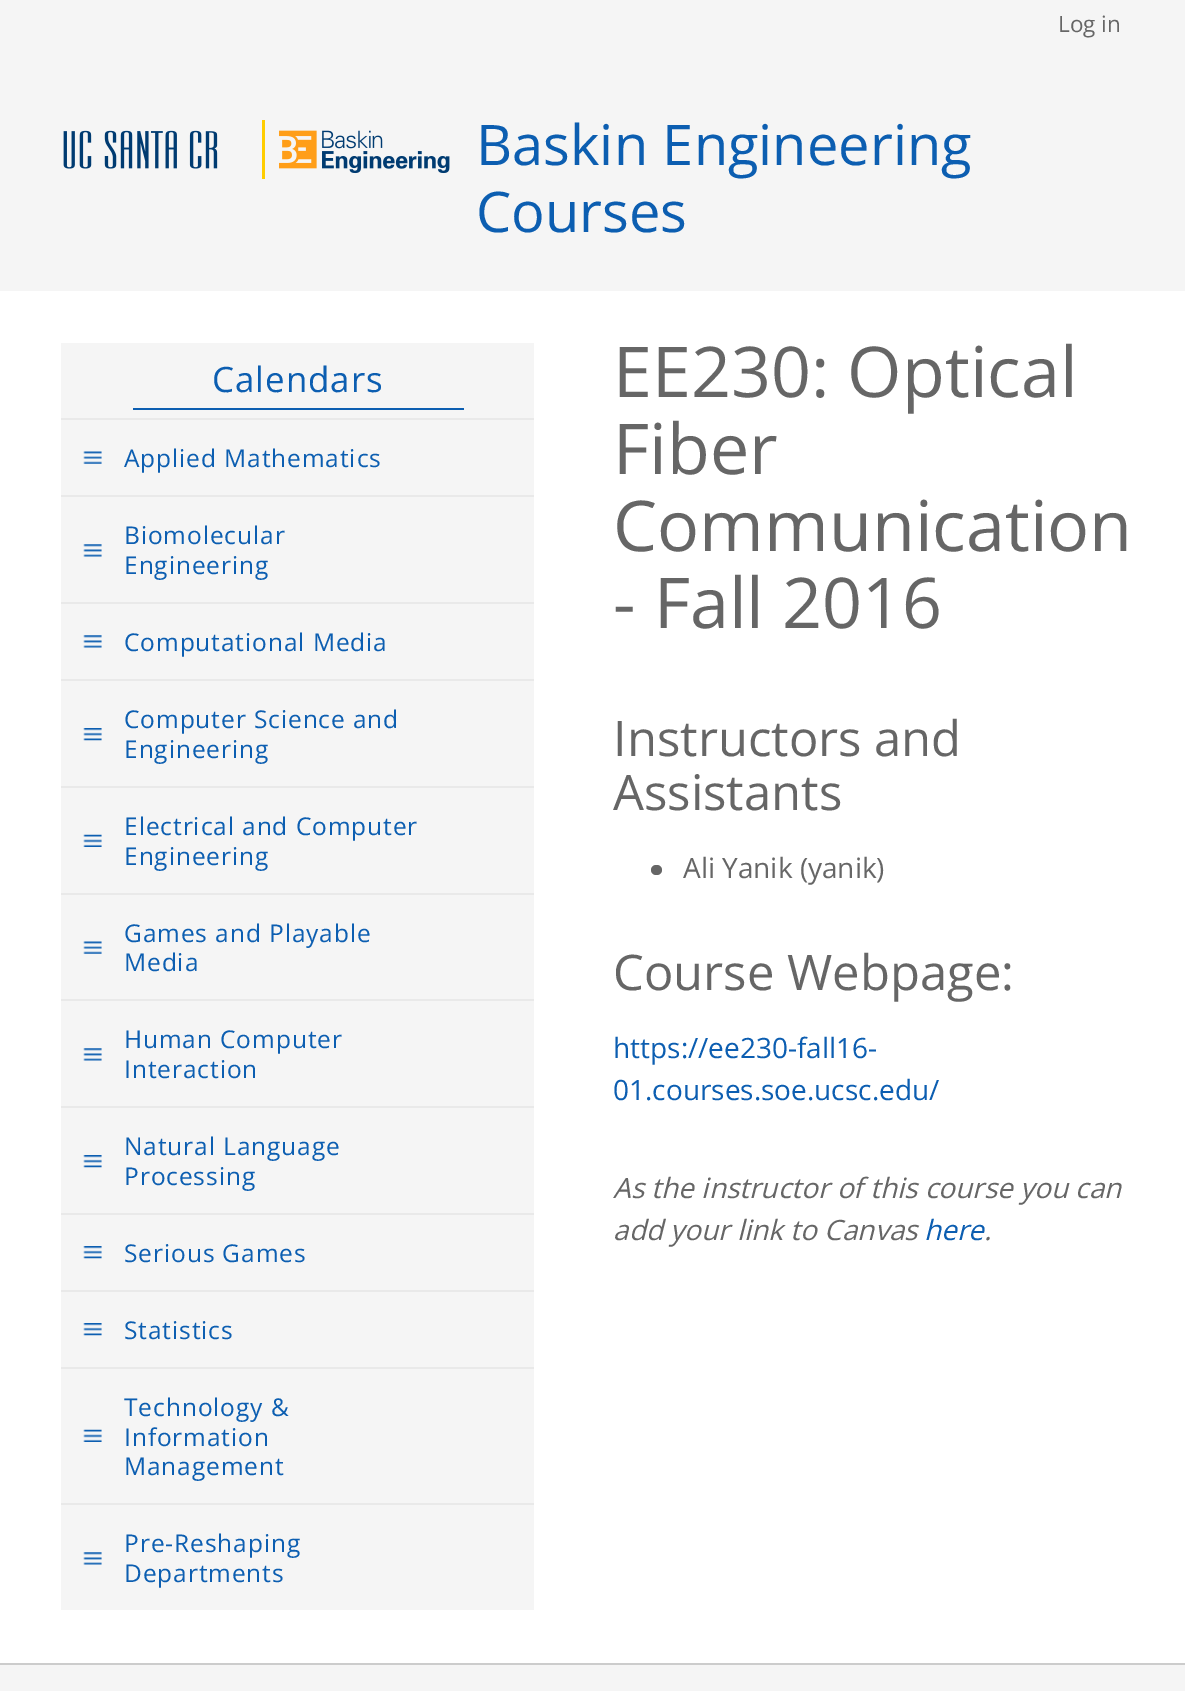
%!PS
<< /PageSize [1185 1691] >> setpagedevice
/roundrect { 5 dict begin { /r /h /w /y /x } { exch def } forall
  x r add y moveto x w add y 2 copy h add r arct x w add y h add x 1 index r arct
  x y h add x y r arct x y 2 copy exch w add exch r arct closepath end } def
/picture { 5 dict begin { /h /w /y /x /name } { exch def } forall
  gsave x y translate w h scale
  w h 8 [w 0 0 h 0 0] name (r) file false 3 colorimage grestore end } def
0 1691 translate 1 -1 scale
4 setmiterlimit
0.961 setgray
0 0 1185 1691 rectfill
/OpenSans-Regular [22.5 0 0 -22.5 0 0] selectfont
0.4 setgray
1058 32 moveto (Log in) show
(img1.rgb) 63 120 387 59 picture
/OpenSans-Regular [56 0 0 -56 0 0] selectfont
0.047 0.369 0.694 setrgbcolor
476 165 moveto (Baskin Engineering) show
476 232 moveto (Courses) show
1 setgray
0 291 1185 1372 rectfill
0.961 setgray
61 343 473 1267 rectfill
0.047 0.369 0.694 setrgbcolor
133 408 331 2 rectfill
/OpenSans-Regular [35 0 0 -35 0 0] selectfont
212 392 moveto 0.9 0 (Calendars) ashow
0.914 setgray
61 418 473 2 rectfill
(img2.rgb) 83 451 19 13 picture
/OpenSans-Regular [24.5 0 0 -24.5 0 0] selectfont
0.047 0.369 0.694 setrgbcolor
124 467 moveto 0.9 0 (Applied Mathematics) ashow
0.914 setgray
61 495 473 2 rectfill
(img3.rgb) 83 544 19 13 picture
0.047 0.369 0.694 setrgbcolor
124 544 moveto 0.9 0 (Biomolecular) ashow
124 574 moveto 0.9 0 (Engineering) ashow
0.914 setgray
61 602 473 2 rectfill
(img3.rgb) 83 635 19 13 picture
0.047 0.369 0.694 setrgbcolor
124 651 moveto 0.9 0 (Computational Media) ashow
0.914 setgray
61 679 473 2 rectfill
(img4.rgb) 83 728 19 13 picture
0.047 0.369 0.694 setrgbcolor
124 728 moveto 0.9 0 (Computer Science and) ashow
124 758 moveto 0.9 0 (Engineering) ashow
0.914 setgray
61 786 473 2 rectfill
(img5.rgb) 83 834 19 13 picture
0.047 0.369 0.694 setrgbcolor
124 835 moveto 0.9 0 (Electrical and Computer) ashow
124 865 moveto 0.9 0 (Engineering) ashow
0.914 setgray
61 893 473 2 rectfill
(img2.rgb) 83 941 19 13 picture
0.047 0.369 0.694 setrgbcolor
124 942 moveto 0.9 0 (Games and Playable) ashow
124 971 moveto 0.9 0 (Media) ashow
0.914 setgray
61 999 473 2 rectfill
(img3.rgb) 83 1048 19 13 picture
0.047 0.369 0.694 setrgbcolor
124 1048 moveto 0.9 0 (Human Computer) ashow
124 1078 moveto 0.9 0 (Interaction) ashow
0.914 setgray
61 1106 473 2 rectfill
(img4.rgb) 83 1155 19 13 picture
0.047 0.369 0.694 setrgbcolor
124 1155 moveto 0.9 0 (Natural Language) ashow
124 1185 moveto 0.9 0 (Processing) ashow
0.914 setgray
61 1213 473 2 rectfill
(img4.rgb) 83 1246 19 13 picture
0.047 0.369 0.694 setrgbcolor
124 1262 moveto 0.9 0 (Serious Games) ashow
0.914 setgray
61 1290 473 2 rectfill
(img4.rgb) 83 1323 19 13 picture
0.047 0.369 0.694 setrgbcolor
124 1339 moveto 0.9 0 (Statistics) ashow
0.914 setgray
61 1367 473 2 rectfill
(img5.rgb) 83 1429 19 13 picture
0.047 0.369 0.694 setrgbcolor
124 1416 moveto 0.9 0 (Technology &) ashow
124 1446 moveto 0.9 0 (Information) ashow
124 1475 moveto 0.9 0 (Management) ashow
0.914 setgray
61 1503 473 2 rectfill
(img3.rgb) 83 1552 19 13 picture
0.047 0.369 0.694 setrgbcolor
124 1552 moveto 0.9 0 (Pre-Reshaping) ashow
124 1582 moveto 0.9 0 (Departments) ashow
/OpenSans-Regular [70 0 0 -70 0 0] selectfont
0.4 setgray
613 397 moveto (EE230: Optical) show
613 474 moveto (Fiber) show
613 551 moveto (Communication) show
613 628 moveto (- Fall 2016) show
/OpenSans-Regular [49 0 0 -49 0 0] selectfont
613 756 moveto (Instructors and) show
613 810 moveto (Assistants) show
651 865 11 10 5 roundrect fill
/OpenSans-Regular [28 0 0 -28 0 0] selectfont
683 878 moveto (Ali Yanik \(yanik\)) show
/OpenSans-Regular [49 0 0 -49 0 0] selectfont
613 990 moveto (Course Webpage:) show
/OpenSans-Regular [28 0 0 -28 0 0] selectfont
0.047 0.369 0.694 setrgbcolor
613 1058 moveto (https://ee230-fall16-) show
613 1100 moveto (01.courses.soe.ucsc.edu/) show
/OpenSans-Italic [28 0 0 -28 0 0] selectfont
0.4 setgray
613 1198 moveto (As the instructor of this course you can) show
613 1240 moveto (add your link to Canvas) show
0.047 0.369 0.694 setrgbcolor
924 1240 moveto (here) show
0.4 setgray
984 1240 moveto (.) show
0.8 setgray
0 1663 1185 2 rectfill
showpage
